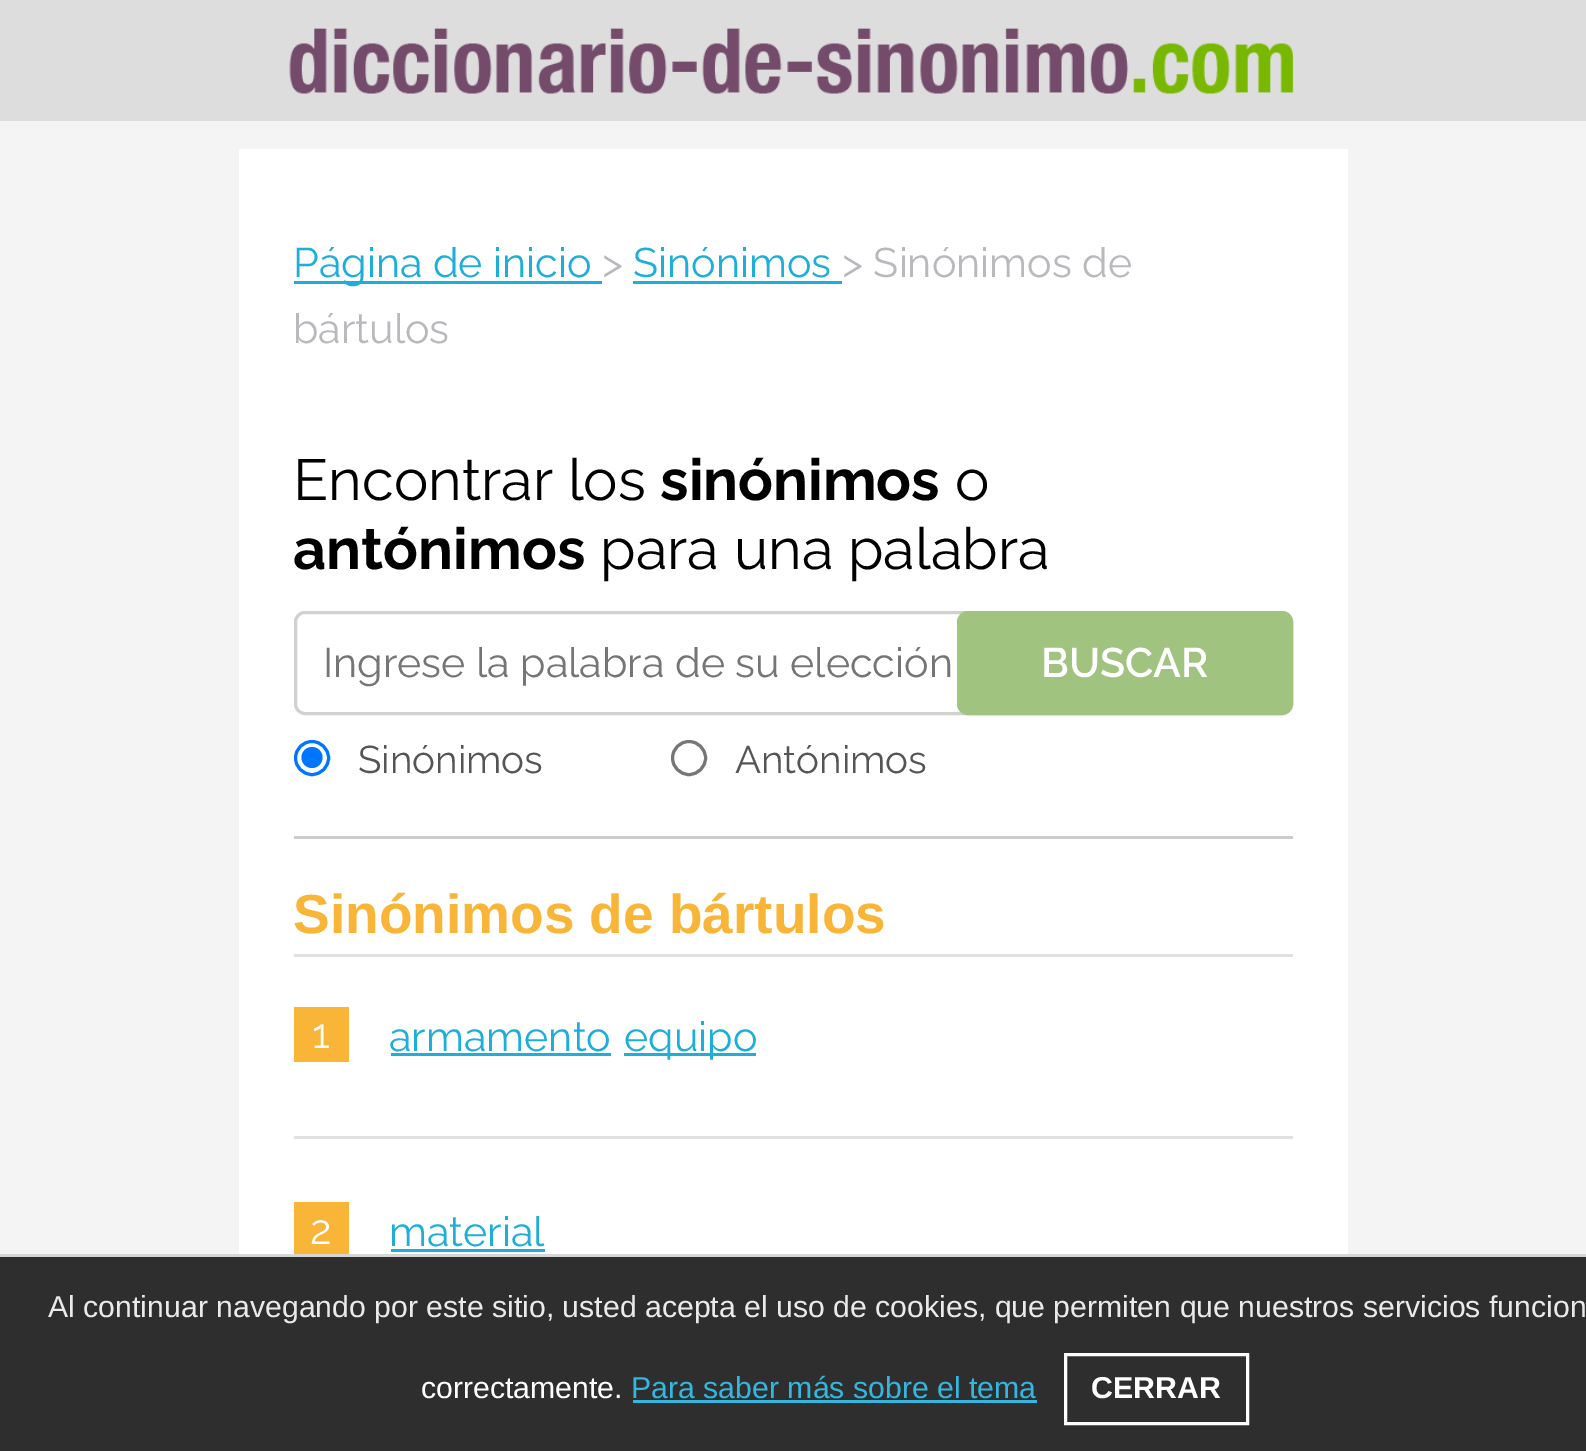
%!PS
<< /PageSize [1586 1451] >> setpagedevice
/roundrect { 5 dict begin { /r /h /w /y /x } { exch def } forall
  x r add y moveto x w add y 2 copy h add r arct x w add y h add x 1 index r arct
  x y h add x y r arct x y 2 copy exch w add exch r arct closepath end } def
/picture { 5 dict begin { /h /w /y /x /name } { exch def } forall
  gsave x y translate w h scale
  w h 8 [w 0 0 h 0 0] name (r) file false 3 colorimage grestore end } def
0 1451 translate 1 -1 scale
4 setmiterlimit
0.957 setgray
0 0 1586 1451 rectfill
0.18 setgray
0 1257 1586 194 rectfill
0.839 setgray
0 1254 1586 3 rectfill
0.867 setgray
0 0 1586 121 rectfill
(img1.rgb) 289 28 1005 66 picture
1 setgray
239 149 1109 1105 rectfill
0.118 0.682 0.859 setrgbcolor
294 281 308 3 rectfill
/Raleway-Regular [41.25 0 0 -41.25 0 0] selectfont
293 277 moveto (Página de inicio) show
0.722 0.722 0.741 setrgbcolor
602 277 moveto (>) show
0.118 0.682 0.859 setrgbcolor
633 277 moveto (Sinónimos) show
633 281 209 3 rectfill
0.722 0.722 0.741 setrgbcolor
842 277 moveto (> Sinónimos de) show
293 343 moveto (bártulos) show
0.8 setgray
294 836 999 3 rectfill
/Raleway-Regular [57.75 0 0 -57.75 0 0] selectfont
0 setgray
293 500 moveto (Encontrar los) show
/Raleway-Bold [57.75 0 0 -57.75 0 0] selectfont
660 500 moveto (sinónimos) show
/Raleway-Regular [57.75 0 0 -57.75 0 0] selectfont
955 500 moveto (o) show
/Raleway-Bold [57.75 0 0 -57.75 0 0] selectfont
293 569 moveto (antónimos) show
/Raleway-Regular [57.75 0 0 -57.75 0 0] selectfont
600 569 moveto (para una palabra) show
0.82 setgray
3 setlinewidth
295.5 612.5 996 101 9.5 roundrect stroke
/Raleway-Regular [41.25 0 0 -41.25 0 0] selectfont
0.459 setgray
323 677 moveto (Ingrese la palabra de su elección) show
0.627 0.765 0.498 setrgbcolor
958.5 612.5 333 101 9.5 roundrect gsave fill grestore
stroke
/Raleway-SemiBold [41.25 0 0 -41.25 0 0] selectfont
1 setgray
1041 677 moveto (BUSCAR) show
0 0.459 1 setrgbcolor
newpath 312 758 16.5 0 360 arc closepath stroke
newpath 312 757.5 10.5 0 360 arc closepath fill
/Raleway-Regular [38.5 0 0 -38.5 0 0] selectfont
0.333 setgray
358 773 moveto (Sinónimos) show
0.463 setgray
newpath 689 758 16.5 0 360 arc closepath stroke
0.333 setgray
735 773 moveto (Antónimos) show
/LiberationSans-Bold [55 0 0 -55 0 0] selectfont
0.973 0.71 0.22 setrgbcolor
293 933 moveto (Sinónimos de bártulos) show
0.882 setgray
294 954 999 3 rectfill
0.973 0.71 0.22 setrgbcolor
294 1007 55 55 rectfill
/Raleway-Regular [41.25 0 0 -41.25 0 0] selectfont
1 setgray
312 1048 moveto (1) show
0.118 0.682 0.859 setrgbcolor
389 1051 moveto (armamento) show
391 1053 220 3 rectfill
624 1053 132 3 rectfill
624 1051 moveto (equipo) show
0.882 setgray
294 1136 999 3 rectfill
0.973 0.71 0.22 setrgbcolor
294 1202 55 52 rectfill
0.839 0.835 0.827 setrgbcolor
294 1254 55 3 rectfill
1 setgray
310 1244 moveto (2) show
0.118 0.682 0.859 setrgbcolor
389 1246 moveto (material) show
391 1249 154 3 rectfill
/LiberationSans-Regular [30.25 0 0 -30.25 0 0] selectfont
0.918 setgray
48 1317 moveto (Al continuar navegando por este sitio, usted acepta el uso de cookies, que permiten que nuestros servicios funcion) show
1 setgray
421 1398 moveto (correctamente.) show
0.208 0.714 0.875 setrgbcolor
631 1398 moveto (Para saber más sobre el tema) show
633 1400 404 3 rectfill
1 setgray
1065.5 1354.5 182 69 rectstroke
/LiberationSans-Bold [30.25 0 0 -30.25 0 0] selectfont
1091 1398 moveto (CERRAR) show
showpage
